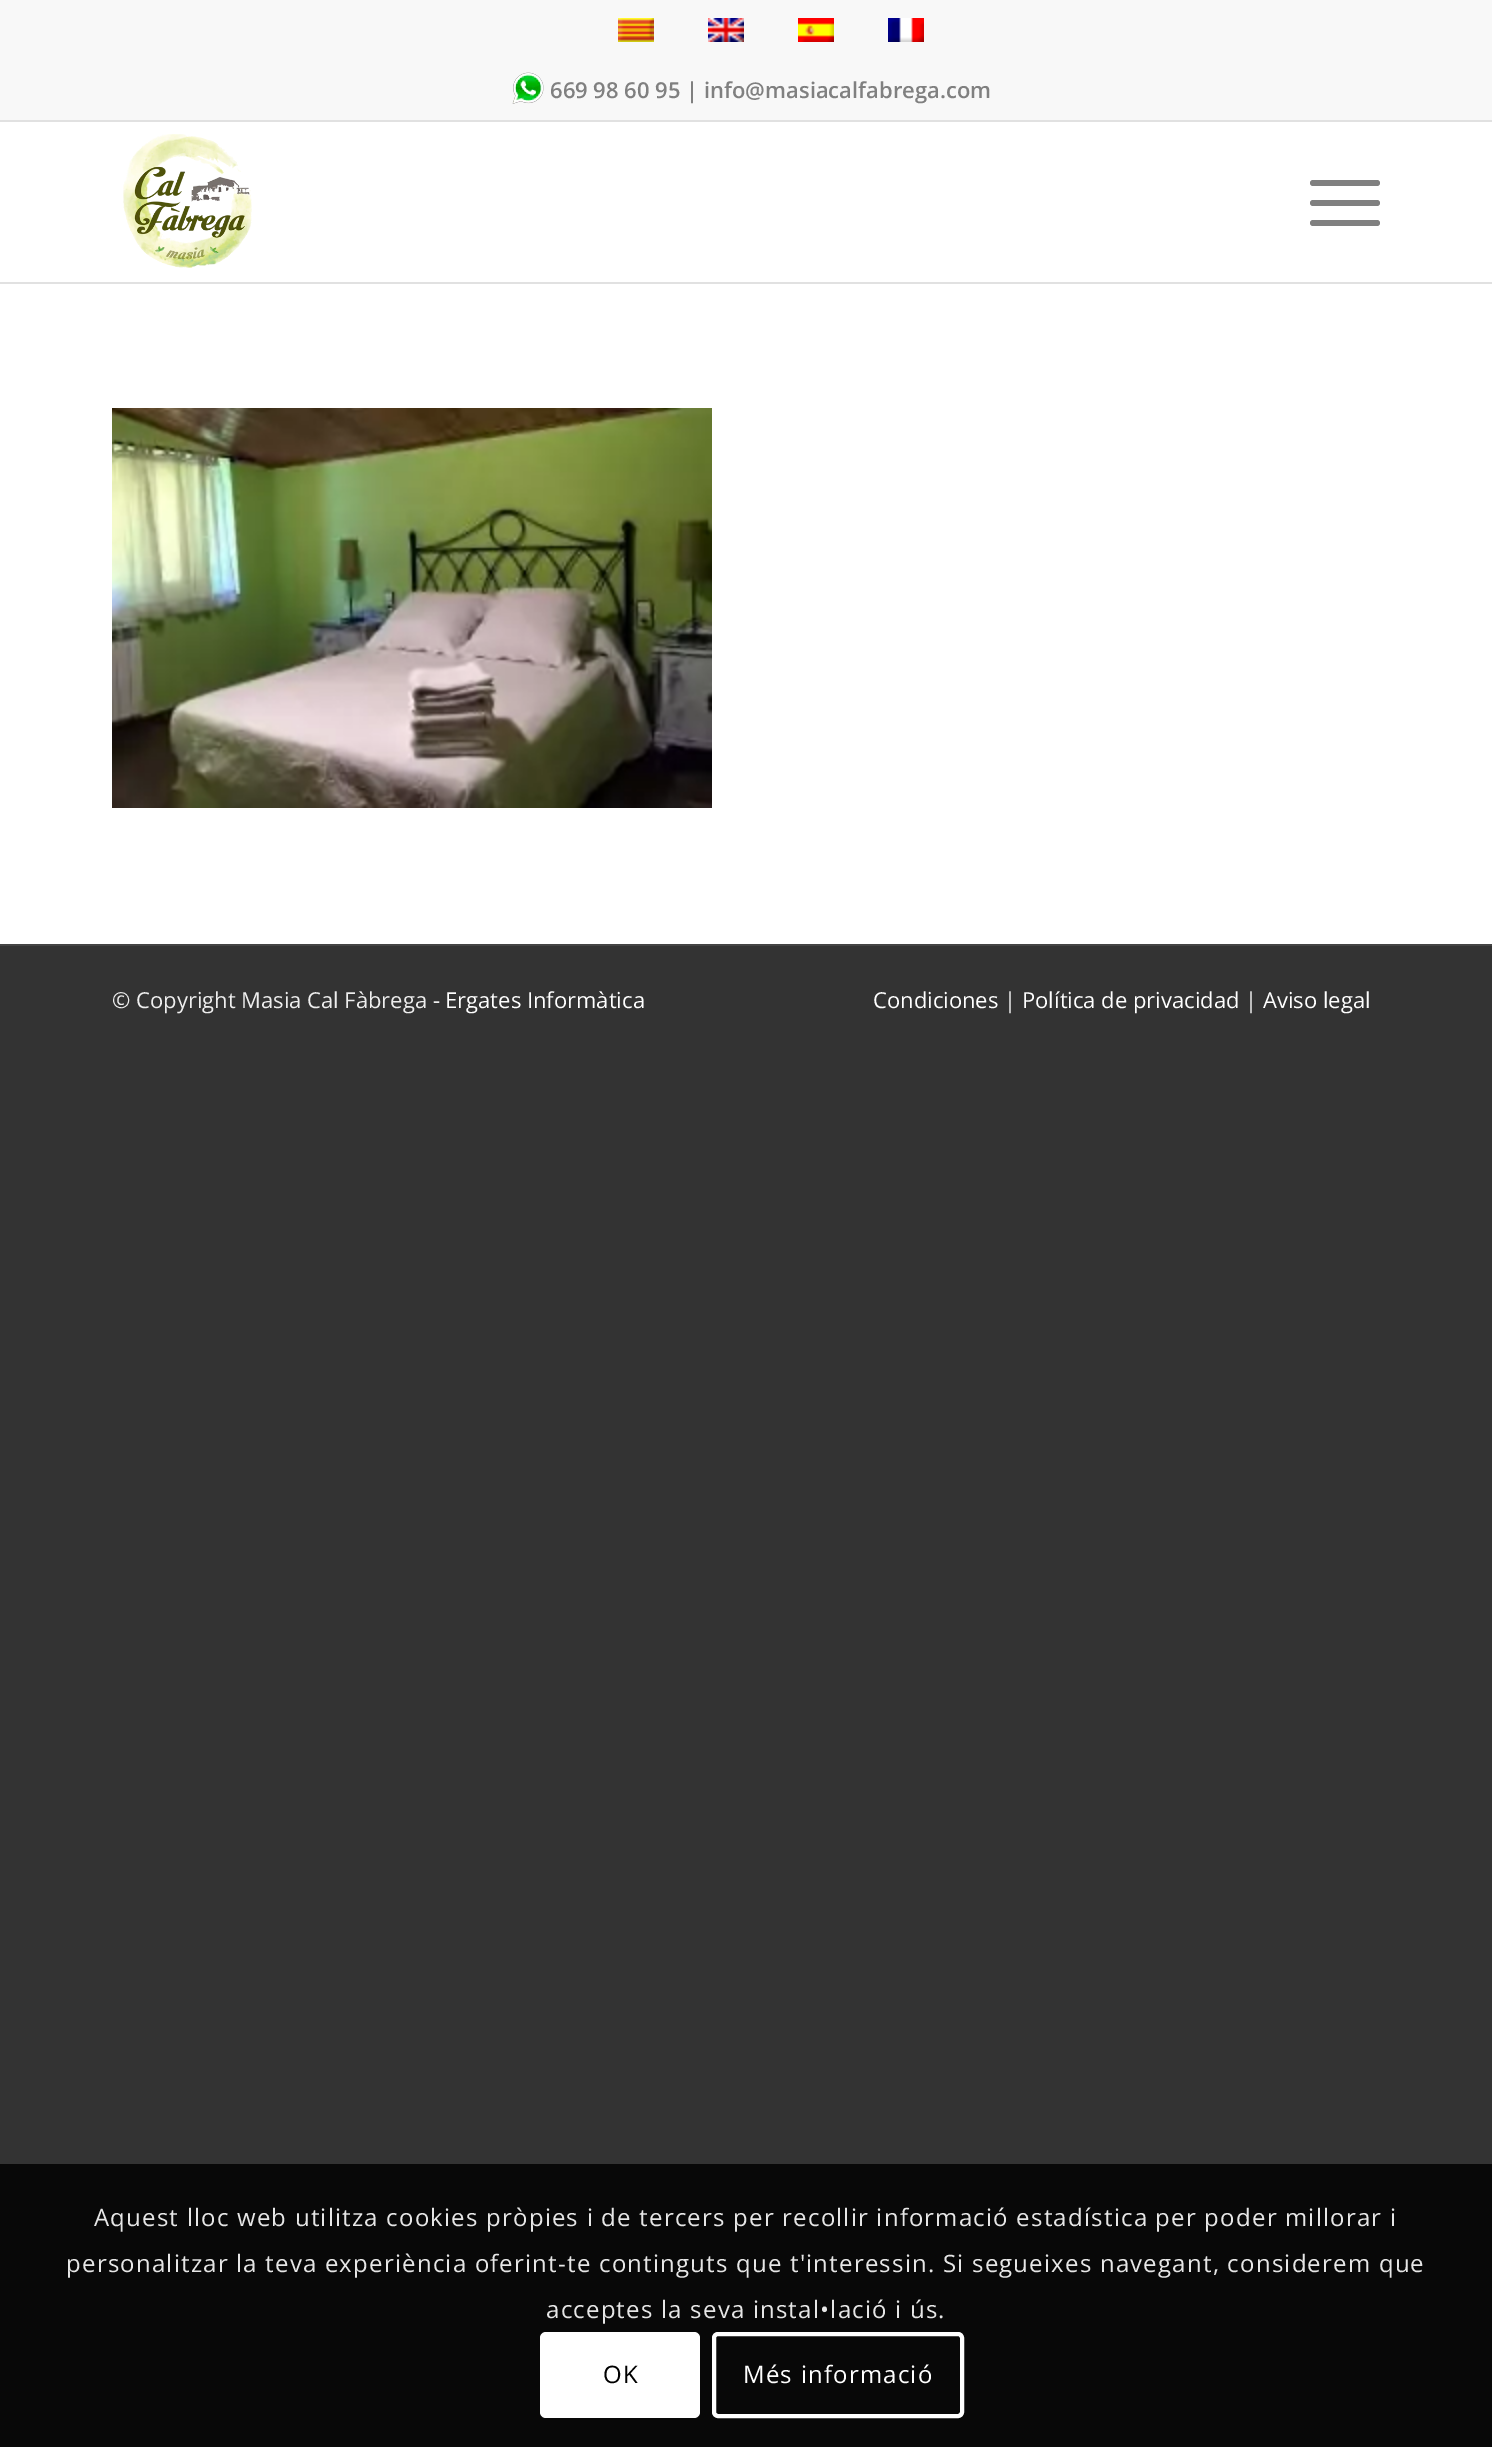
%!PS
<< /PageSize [1492 2447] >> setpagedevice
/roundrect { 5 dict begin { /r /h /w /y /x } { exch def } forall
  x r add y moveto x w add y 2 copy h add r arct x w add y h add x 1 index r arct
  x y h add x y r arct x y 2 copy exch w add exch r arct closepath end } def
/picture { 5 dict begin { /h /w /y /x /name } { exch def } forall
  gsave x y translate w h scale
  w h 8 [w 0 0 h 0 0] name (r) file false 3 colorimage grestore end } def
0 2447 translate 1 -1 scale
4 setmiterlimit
0.2 setgray
0 0 1492 2447 rectfill
1 setgray
0 122 1492 822 rectfill
0.973 setgray
0 0 1492 120 rectfill
0.882 setgray
0 120 1492 2 rectfill
(img1.rgb) 618 18 36 24 picture
(img2.rgb) 708 18 36 24 picture
(img3.rgb) 798 18 36 24 picture
(img4.rgb) 888 18 36 24 picture
(img5.rgb) 512 72 32 32 picture
/OpenSans-SemiBold [22 0 0 -22 0 0] selectfont
0.502 setgray
550 98 moveto (669 98 60 95 | info@masiacalfabrega.com) show
0.882 setgray
0 282 1492 2 rectfill
(img6.rgb) 123 134 129 134 picture
0.502 setgray
1310 200 70 6 3 roundrect fill
1310 180 70 6 3 roundrect fill
1310 220 70 6 3 roundrect fill
(img7.rgb) 112 408 600 400 picture
0.267 setgray
0 944 1492 2 rectfill
/OpenSans-Regular [22 0 0 -22 0 0] selectfont
0.933 setgray
112 1008 moveto (© Copyright Masia Cal Fàbrega -) show
1 setgray
445 1008 moveto (Ergates Informàtica) show
873 1008 moveto (Condiciones) show
0.933 setgray
1004 1008 moveto (|) show
1 setgray
1022 1008 moveto (Política de privacidad) show
0.933 setgray
1245 1008 moveto (|) show
1 setgray
1263 1008 moveto (Aviso legal) show
0.031 setgray
0 2164 1492 283 rectfill
/OpenSans-Regular [24 0 0 -24 0 0] selectfont
0.902 setgray
94 2226 moveto 1.2 0 (Aquest lloc web utilitza cookies pròpies i de tercers per recollir informació estadística per poder millorar i) ashow
66 2272 moveto 1.2 0 (personalitzar la teva experiència oferint-te continguts que t'interessin. Si segueixes navegant, considerem que) ashow
546 2318 moveto 1.2 0 (acceptes la seva instal•lació i ús.) ashow
1 setgray
540 2332 160 86 6 roundrect fill
0 setgray
603 2383 moveto 1.2 0 (OK) ashow
1 setgray
4 setlinewidth
714 2334 248 82 4 roundrect stroke
743 2383 moveto 1.2 0 (Més informació) ashow
showpage
